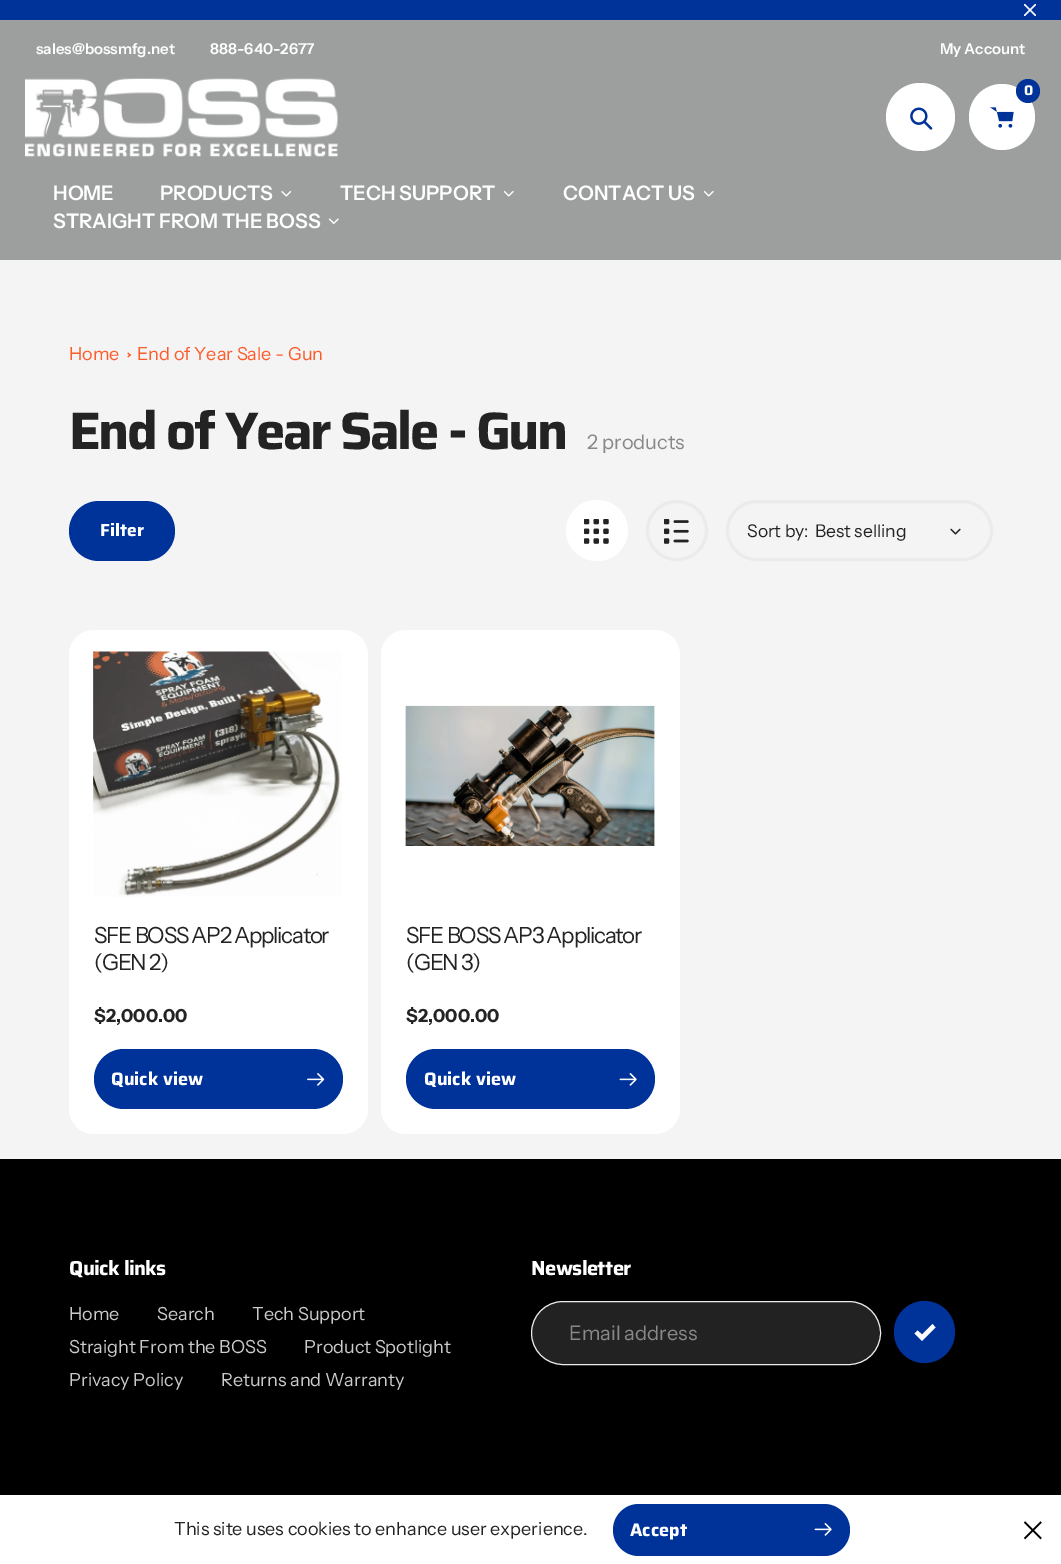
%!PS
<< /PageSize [1061 1564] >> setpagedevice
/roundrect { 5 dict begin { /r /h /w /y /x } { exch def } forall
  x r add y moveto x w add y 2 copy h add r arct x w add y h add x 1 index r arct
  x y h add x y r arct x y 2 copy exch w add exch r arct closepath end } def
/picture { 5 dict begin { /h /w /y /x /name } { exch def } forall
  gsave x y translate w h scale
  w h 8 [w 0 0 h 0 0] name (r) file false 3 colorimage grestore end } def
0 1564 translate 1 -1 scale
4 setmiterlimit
0.957 setgray
0 0 1061 1564 rectfill
0 0.2 0.6 setrgbcolor
0 0 1061 20 rectfill
(img1.rgb) 1024 4 12 12 picture
0.616 0.624 0.62 setrgbcolor
0 20 1061 240 rectfill
/InstrumentSans-SemiBold [15 0 0 -15 0 0] selectfont
1 setgray
36 54 moveto (sales@bossmfg.net) show
210 54 moveto (888-640-2677) show
940 54 moveto (My Account) show
(img2.rgb) 25 78 313 79 picture
886 83 69 68 34 roundrect fill
(img3.rgb) 910 107 23 23 picture
newpath 1002 117 33 0 360 arc closepath fill
0 0.2 0.6 setrgbcolor
newpath 1028 91 12 0 360 arc closepath fill
/Saira-Bold [14 0 0 -14 0 0] selectfont
1 setgray
1024 95 moveto (0) show
(img4.rgb) 990 107 24 21 picture
/InstrumentSans-SemiBold [20 0 0 -20 0 0] selectfont
53 200 moveto (HOME) show
160 200 moveto (PRODUCTS) show
(img5.rgb) 281 191 11 6 picture
340 200 moveto (TECH SUPPORT) show
(img6.rgb) 503 191 11 6 picture
563 200 moveto (CONTACT US) show
(img6.rgb) 703 191 11 6 picture
53 228 moveto (STRAIGHT FROM THE BOSS) show
(img7.rgb) 328 218 11 6 picture
/InstrumentSans-Regular [18 0 0 -18 0 0] selectfont
0.992 0.357 0.165 setrgbcolor
69 360 moveto (Home) show
newpath 128 352.5 moveto 131 355 lineto 130 356 lineto 127.5 353.5 lineto closepath fill
newpath 130 354 moveto 131 355 lineto 128 357.5 lineto 127.5 356.5 lineto closepath fill
137 360 moveto (End of Year Sale - Gun) show
/Saira-Bold [52.75 0 0 -52.75 0 0] selectfont
0.137 setgray
69 449 moveto -2.5 0 (End of Year Sale - Gun) ashow
/InstrumentSans-Regular [20 0 0 -20 0 0] selectfont
0.533 setgray
587 449 moveto (2 products) show
0 0.2 0.6 setrgbcolor
69 501 106 60 30 roundrect fill
/Saira-Bold [17.5 0 0 -17.5 0 0] selectfont
1 setgray
100 536 moveto (Filter) show
566 500 62 61 30.5 roundrect fill
(img8.rgb) 584 519 25 25 picture
0.922 setgray
3 setlinewidth
647.5 501.5 59 58 29 roundrect stroke
(img9.rgb) 664 519 25 25 picture
727.5 501.5 264 58 29 roundrect stroke
/InstrumentSans-Regular [17.5 0 0 -17.5 0 0] selectfont
0.137 setgray
747 537 moveto (Sort by:) show
815 537 moveto (Best selling) show
(img10.rgb) 950 528 11 7 picture
1 setgray
69 630 299 504 25 roundrect fill
(img11.rgb) 93 651 249 246 picture
/InstrumentSans-Regular [22.25 0 0 -22.25 0 0] selectfont
0.137 setgray
94 943 moveto -1.25 0 (SFE BOSS AP2 Applicator) ashow
94 970 moveto -1.25 0 (\(GEN 2\)) ashow
/InstrumentSans-Bold [18 0 0 -18 0 0] selectfont
94 1022 moveto ($2,000.00) show
0 0.2 0.6 setrgbcolor
94 1049 249 60 30 roundrect fill
/Saira-Bold [18 0 0 -18 0 0] selectfont
1 setgray
111 1085 moveto (Quick view) show
(img12.rgb) 307 1072 18 14 picture
381 630 299 504 25 roundrect fill
(img13.rgb) 405 705 250 141 picture
/InstrumentSans-Regular [22.25 0 0 -22.25 0 0] selectfont
0.137 setgray
406 943 moveto -1.25 0 (SFE BOSS AP3 Applicator) ashow
406 970 moveto -1.25 0 (\(GEN 3\)) ashow
/InstrumentSans-Bold [18 0 0 -18 0 0] selectfont
406 1022 moveto ($2,000.00) show
0 0.2 0.6 setrgbcolor
406 1049 249 60 30 roundrect fill
/Saira-Bold [18 0 0 -18 0 0] selectfont
1 setgray
424 1085 moveto (Quick view) show
(img14.rgb) 619 1072 18 14 picture
0 setgray
0 1159 1061 336 rectfill
/Saira-Bold [20.25 0 0 -20.25 0 0] selectfont
1 setgray
69 1275 moveto -0.6 0 (Quick links) ashow
/InstrumentSans-Regular [18 0 0 -18 0 0] selectfont
0.8 setgray
69 1320 moveto (Home) show
157 1320 moveto (Search) show
252 1320 moveto (Tech Support) show
69 1353 moveto (Straight From the BOSS) show
304 1353 moveto (Product Spotlight) show
69 1386 moveto (Privacy Policy) show
221 1386 moveto (Returns and Warranty) show
/Saira-Bold [20.25 0 0 -20.25 0 0] selectfont
1 setgray
531 1275 moveto -0.6 0 (Newsletter) ashow
0.133 setgray
531.5 1301.5 349 63 31.5 roundrect gsave fill grestore
0.922 setgray
1 setlinewidth
stroke
/InstrumentSans-Regular [20 0 0 -20 0 0] selectfont
0.533 setgray
569 1340 moveto (Email address) show
0 0.2 0.6 setrgbcolor
894 1301 61 62 30.5 roundrect fill
1 setgray
newpath 922 1341 moveto 914.5 1333.5 lineto 917.5 1330.5 lineto 922 1334.5 lineto 932.5 1324 lineto 935.5 1327.5 lineto closepath fill
0 1495 1061 69 rectfill
/InstrumentSans-Regular [18 0 0 -18 0 0] selectfont
0.137 setgray
174 1535 moveto (This site uses cookies to enhance user experience.) show
0 0.2 0.6 setrgbcolor
613 1504 237 52 26 roundrect fill
/Saira-Bold [18 0 0 -18 0 0] selectfont
1 setgray
630 1536 moveto (Accept) show
(img14.rgb) 814 1522 18 14 picture
(img15.rgb) 1024 1521 18 19 picture
showpage
